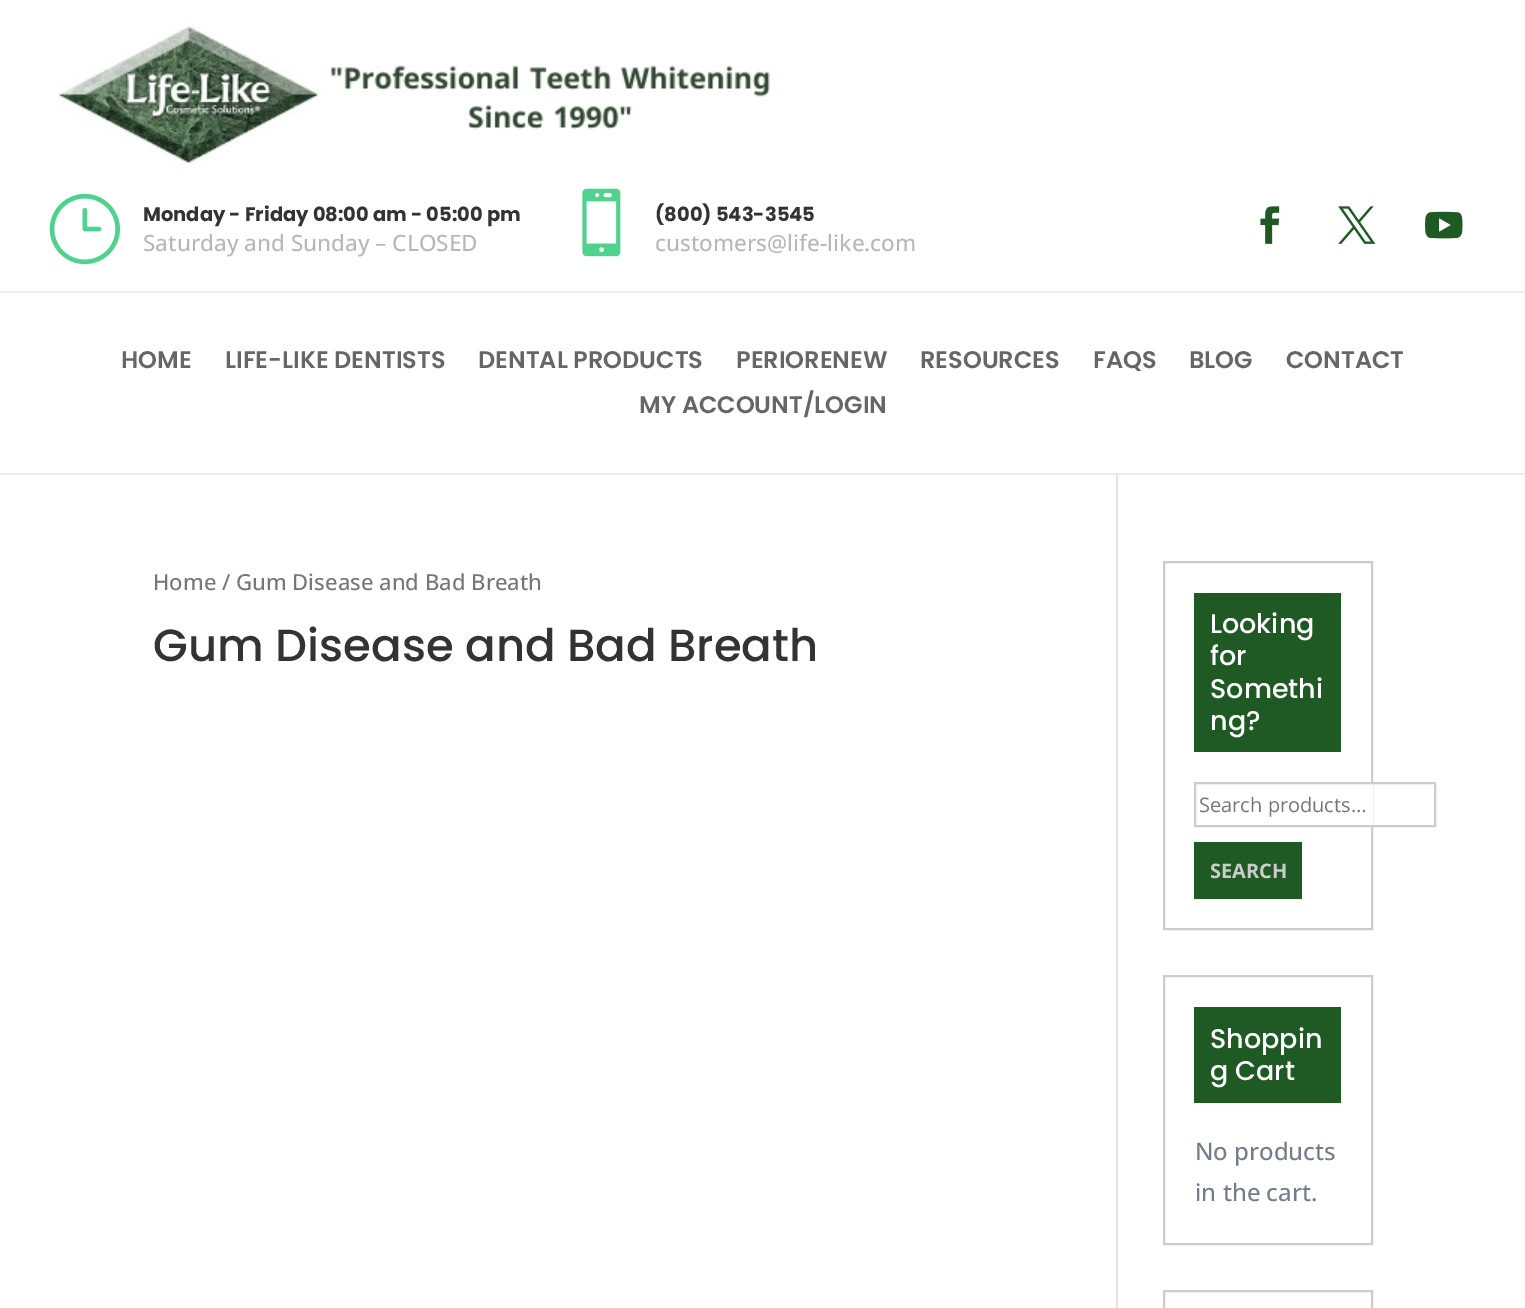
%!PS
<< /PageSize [1525 1308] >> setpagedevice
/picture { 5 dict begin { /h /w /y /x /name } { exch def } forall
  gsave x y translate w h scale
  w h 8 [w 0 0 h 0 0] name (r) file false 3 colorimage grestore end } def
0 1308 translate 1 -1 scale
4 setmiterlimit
1 setgray
0 0 1525 1308 rectfill
(img1.rgb) 57 26 713 138 picture
(img2.rgb) 49 193 71 72 picture
/Poppins-Bold [19.5 0 0 -19.5 0 0] selectfont
0.2 setgray
143 221 moveto (Monday - Friday 08:00 am - 05:00 pm) show
/OpenSans-Medium [22.5 0 0 -22.5 0 0] selectfont
0.718 setgray
143 251 moveto (Saturday and Sunday – CLOSED) show
(img3.rgb) 582 188 39 69 picture
/Poppins-Bold [19.5 0 0 -19.5 0 0] selectfont
0.2 setgray
655 221 moveto (\(800\) 543-3545) show
/OpenSans-Medium [22.5 0 0 -22.5 0 0] selectfont
0.718 setgray
655 251 moveto (customers@life-like.com) show
(img4.rgb) 1260 206 20 38 picture
(img5.rgb) 1338 206 38 38 picture
(img6.rgb) 1425 211 38 28 picture
0.922 setgray
0 291 1525 2 rectfill
0.886 setgray
1116 474 2 834 rectfill
0.922 setgray
0 473 1525 2 rectfill
/Poppins-SemiBold [24 0 0 -24 0 0] selectfont
0.4 setgray
121 368 moveto (HOME) show
225 368 moveto (LIFE-LIKE DENTISTS) show
478 368 moveto (DENTAL PRODUCTS) show
736 368 moveto (PERIORENEW) show
920 368 moveto (RESOURCES) show
1093 368 moveto (FAQS) show
1189 368 moveto (BLOG) show
1286 368 moveto (CONTACT) show
639 413 moveto (MY ACCOUNT/LOGIN) show
/OpenSans-Medium [22.1 0 0 -22.1 0 0] selectfont
0.463 setgray
153 590 moveto (Home / Gum Disease and Bad Breath) show
/Poppins-Medium [45 0 0 -45 0 0] selectfont
0.2 setgray
153 661 moveto (Gum Disease and Bad Breath) show
0.8 setgray
2 setlinewidth
1164 562 208 367 rectstroke
0.122 0.353 0.141 setrgbcolor
1194 593 147 159 rectfill
/Poppins-Medium [27 0 0 -27 0 0] selectfont
1 setgray
1210 633 moveto (Looking) show
1210 665 moveto (for) show
1210 698 moveto (Somethi) show
1210 730 moveto (ng?) show
1371 784 2 41 rectfill
0.8 setgray
1195 783 240 43 rectstroke
/OpenSans-Regular [20 0 0 -20 0 0] selectfont
0.463 setgray
1199 812 moveto (Search products…) show
0.122 0.353 0.141 setrgbcolor
1194 842 108 57 rectfill
/OpenSans-Bold [20 0 0 -20 0 0] selectfont
0.8 setgray
1210 878 moveto (SEARCH) show
1164 976 208 268 rectstroke
0.122 0.353 0.141 setrgbcolor
1194 1007 147 96 rectfill
/Poppins-Medium [27 0 0 -27 0 0] selectfont
1 setgray
1210 1048 moveto (Shoppin) show
1210 1080 moveto (g Cart) show
/OpenSans-Medium [24 0 0 -24 0 0] selectfont
0.451 0.486 0.545 setrgbcolor
1195 1160 moveto (No products) show
1195 1201 moveto (in the cart.) show
0.8 setgray
1164 1291 208 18 rectstroke
showpage
